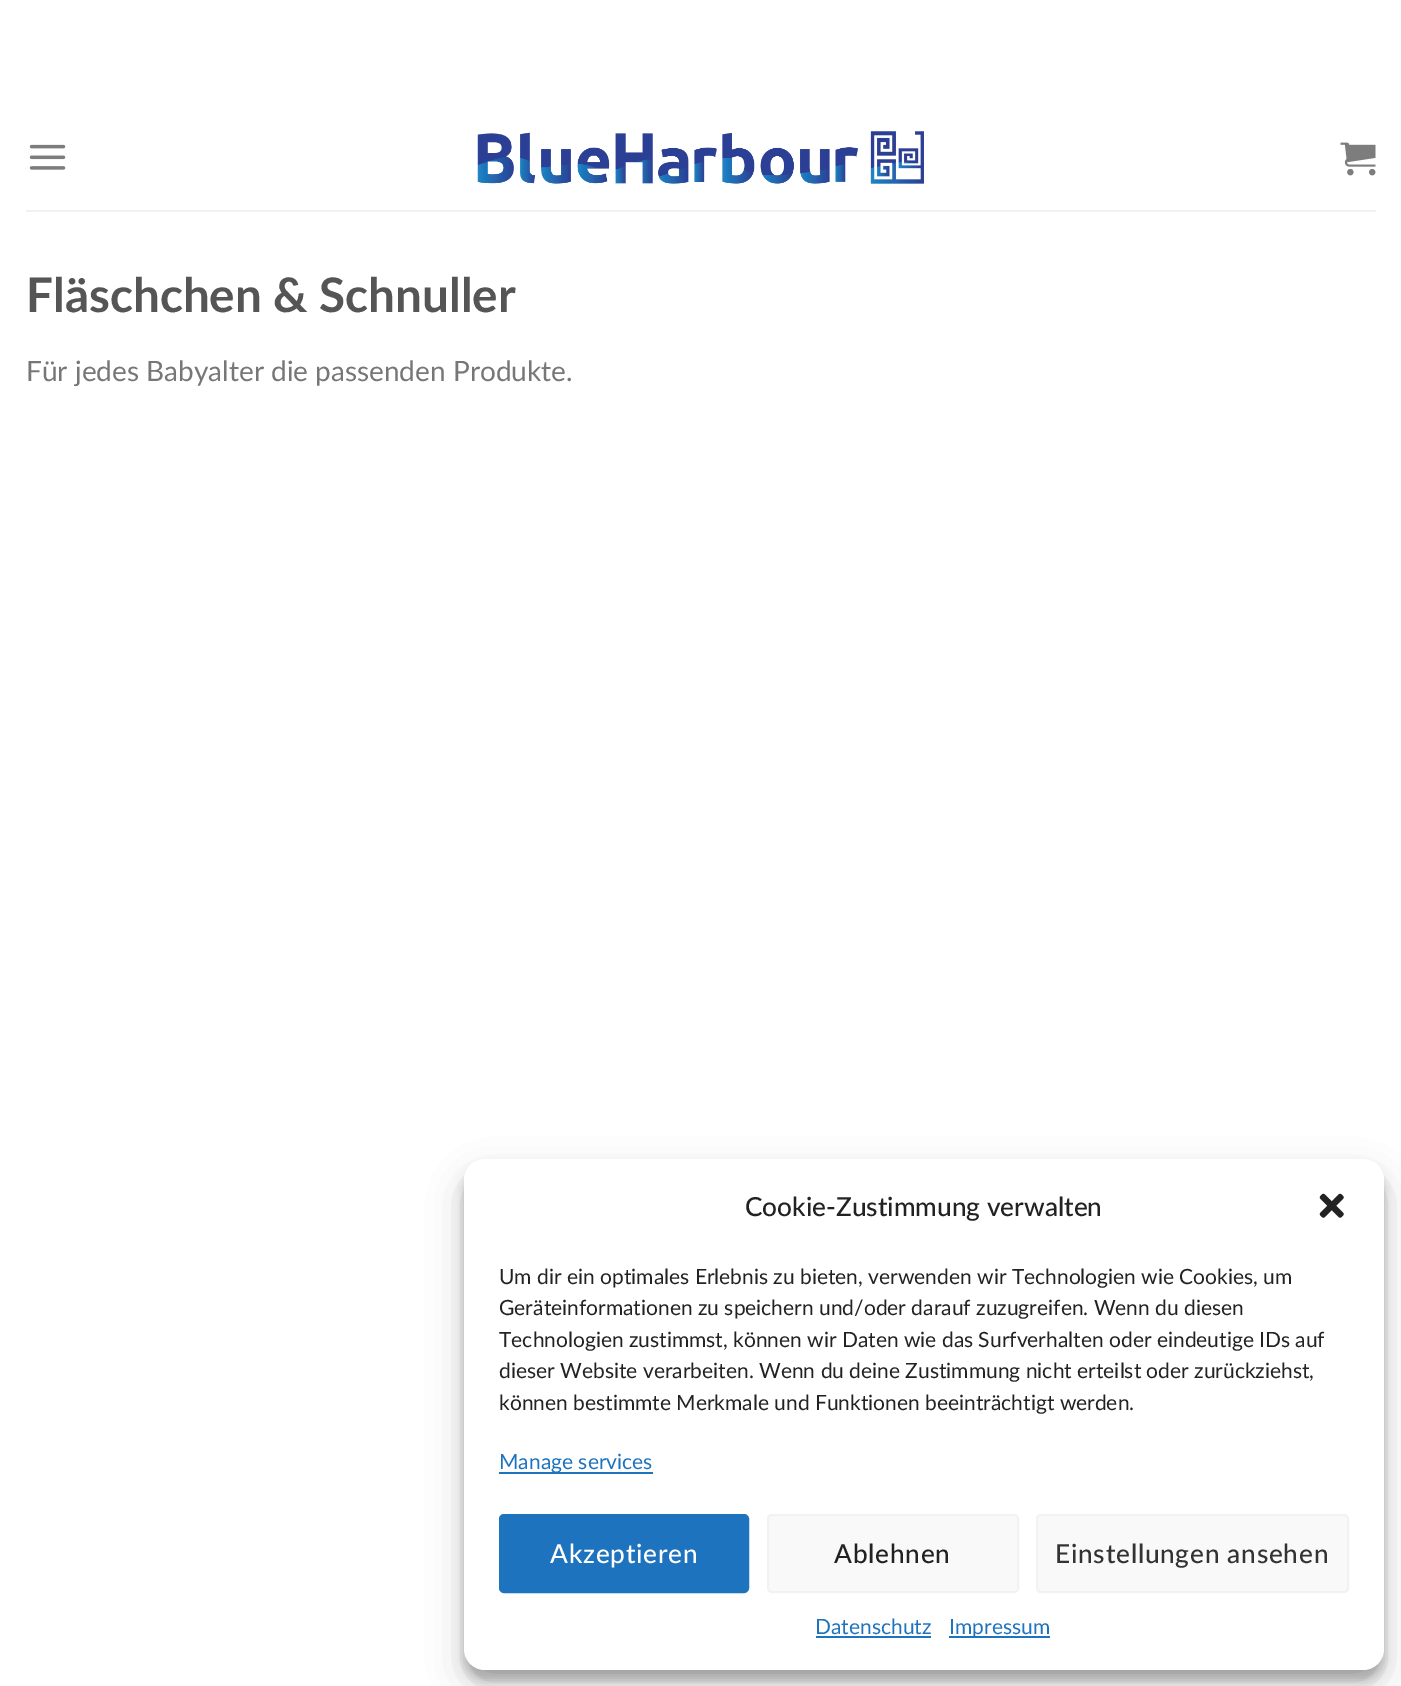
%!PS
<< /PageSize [1401 1686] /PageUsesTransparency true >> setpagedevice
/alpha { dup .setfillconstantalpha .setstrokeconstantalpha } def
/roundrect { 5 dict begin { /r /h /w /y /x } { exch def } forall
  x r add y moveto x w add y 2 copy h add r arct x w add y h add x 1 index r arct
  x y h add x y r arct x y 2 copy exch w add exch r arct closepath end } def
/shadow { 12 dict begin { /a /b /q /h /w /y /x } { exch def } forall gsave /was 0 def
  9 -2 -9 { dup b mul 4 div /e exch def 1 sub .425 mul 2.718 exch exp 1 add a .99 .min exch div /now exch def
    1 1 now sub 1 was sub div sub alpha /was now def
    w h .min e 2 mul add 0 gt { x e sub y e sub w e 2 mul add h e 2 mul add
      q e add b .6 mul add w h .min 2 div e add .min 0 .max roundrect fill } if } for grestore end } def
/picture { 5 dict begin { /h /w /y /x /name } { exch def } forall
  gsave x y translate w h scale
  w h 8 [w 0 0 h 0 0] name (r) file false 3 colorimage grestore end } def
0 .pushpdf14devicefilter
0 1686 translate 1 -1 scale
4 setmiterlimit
1 setgray
0 0 1401 1686 rectfill
(img1.rgb) 29 144 37 26 picture
(img2.rgb) 477 131 447 53 picture
(img3.rgb) 1340 142 36 34 picture
0.945 setgray
26 210 1350 2 rectfill
/Lato-Bold [47.6 0 0 -47.6 0 0] selectfont
0.333 setgray
26 312 moveto (Fläschchen & Schnuller) show
/Lato-Regular [28 0 0 -28 0 0] selectfont
0.467 setgray
26 381 moveto (Für jedes Babyalter die passenden Produkte.) show
0 setgray
464 1169 920 511 21 5 0.23 shadow
464 1176 920 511 21 17.5 0.19 shadow
1 setgray
464 1159 920 511 21 roundrect fill
/Lato-Medium [26.25 0 0 -26.25 0 0] selectfont
0.133 setgray
745 1216 moveto (Cookie-Zustimmung verwalten) show
(img4.rgb) 1319 1193 25 25 picture
/Lato-Regular [21 0 0 -21 0 0] selectfont
499 1284 moveto (Um dir ein optimales Erlebnis zu bieten, verwenden wir Technologien wie Cookies, um) show
499 1315 moveto (Geräteinformationen zu speichern und/oder darauf zuzugreifen. Wenn du diesen) show
499 1347 moveto (Technologien zustimmst, können wir Daten wie das Surfverhalten oder eindeutige IDs auf) show
499 1378 moveto (dieser Website verarbeiten. Wenn du deine Zustimmung nicht erteilst oder zurückziehst,) show
499 1410 moveto (können bestimmte Merkmale und Funktionen beeinträchtigt werden.) show
0.118 0.451 0.745 setrgbcolor
499 1472 154 2 rectfill
499 1469 moveto (Manage services) show
500 1515 248 77 4 roundrect gsave fill grestore
2 setlinewidth
stroke
/Lato-Medium [26.25 0 0 -26.25 0 0] selectfont
1 setgray
550 1563 moveto 0.75 0 (Akzeptieren) ashow
0.976 setgray
768 1515 250 77 4 roundrect gsave fill grestore
0.949 setgray
stroke
0.133 setgray
834 1563 moveto 0.75 0 (Ablehnen) ashow
0.976 setgray
1037 1515 311 77 4 roundrect gsave fill grestore
0.949 setgray
stroke
0.2 setgray
1055 1563 moveto 0.75 0 (Einstellungen ansehen) ashow
/Lato-Regular [21 0 0 -21 0 0] selectfont
0.118 0.451 0.745 setrgbcolor
815 1634 moveto (Datenschutz) show
816 1636 115 2 rectfill
949 1636 101 2 rectfill
949 1634 moveto (Impressum) show
.poppdf14devicefilter showpage
